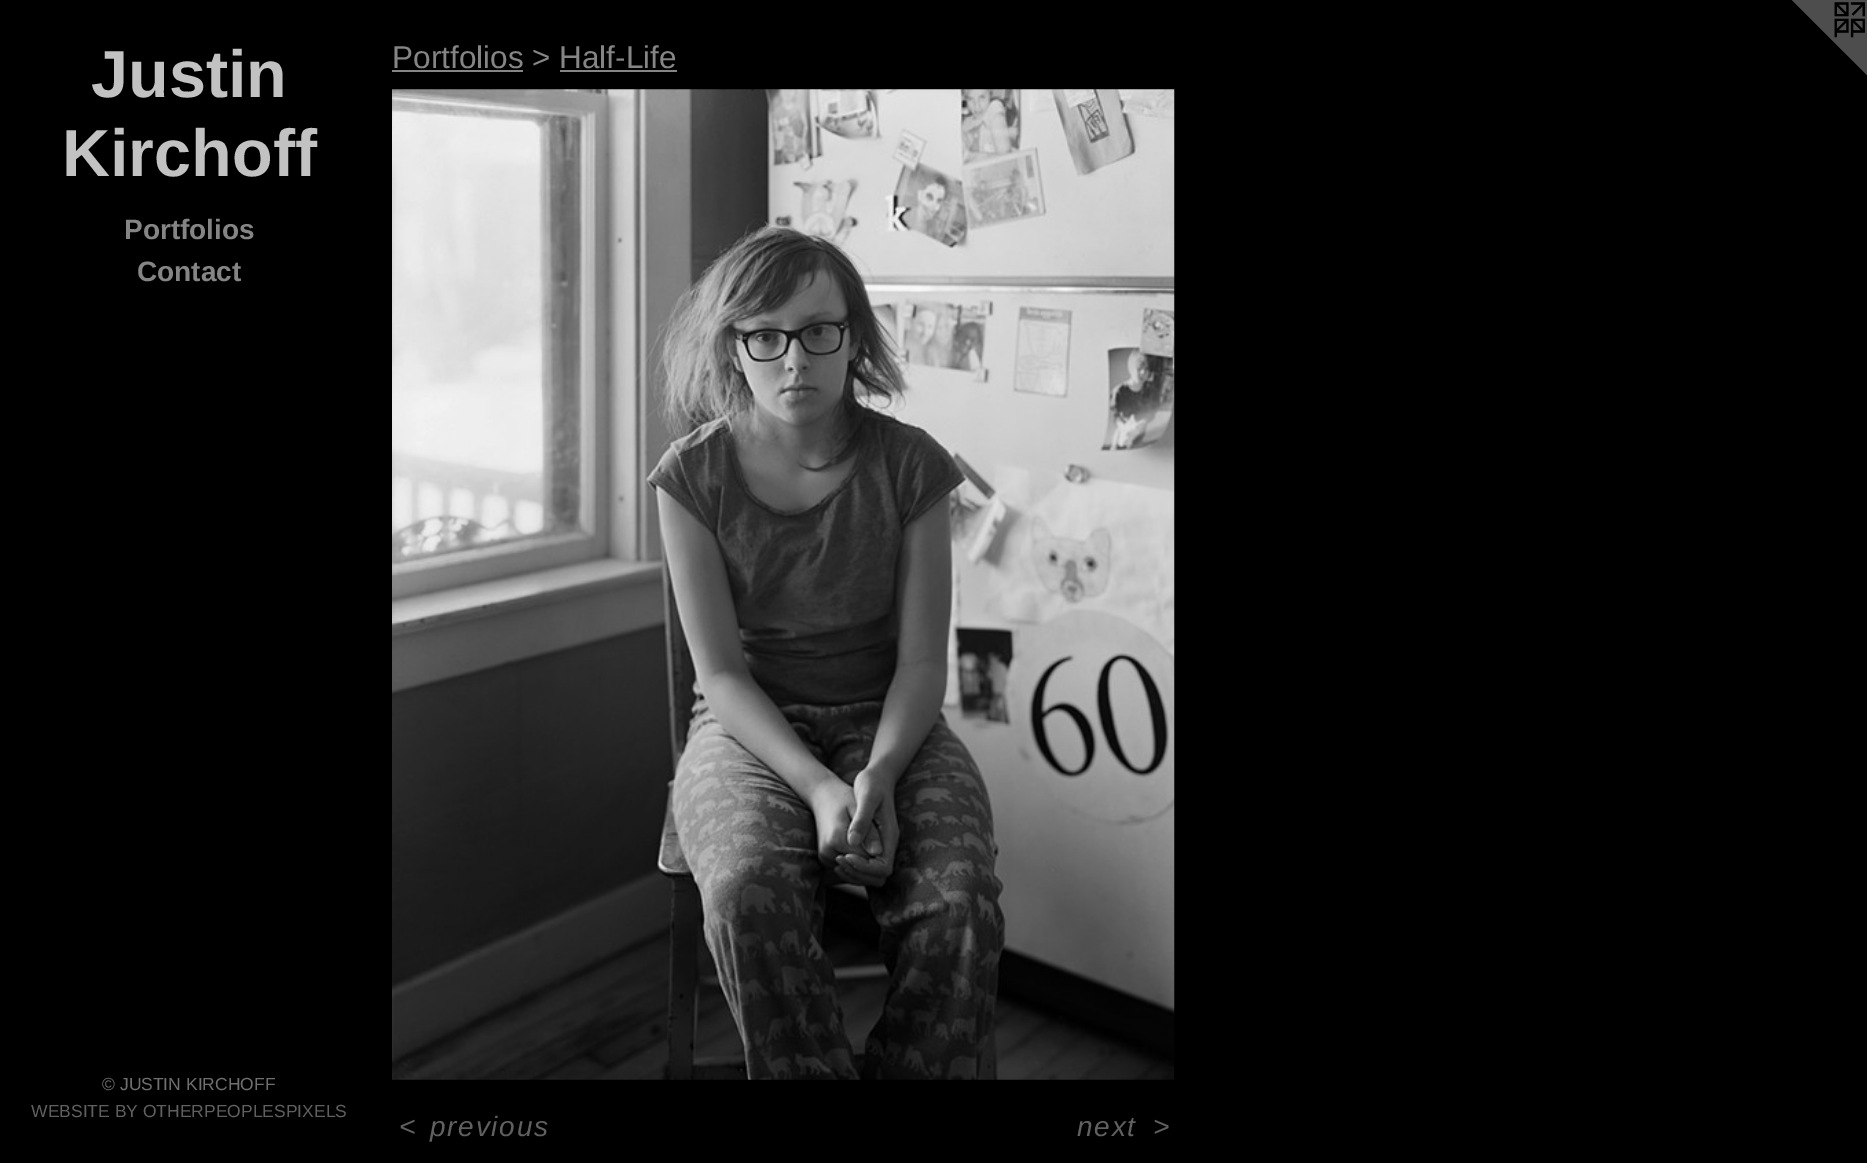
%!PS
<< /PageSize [1867 1163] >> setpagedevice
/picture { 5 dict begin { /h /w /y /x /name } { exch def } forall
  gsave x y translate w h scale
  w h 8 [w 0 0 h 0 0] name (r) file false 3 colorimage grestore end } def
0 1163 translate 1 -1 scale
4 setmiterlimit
0 setgray
0 0 1867 1163 rectfill
/LiberationSans-Bold [66.5 0 0 -66.5 0 0] selectfont
0.761 setgray
91 97 moveto (Justin) show
62 176 moveto (Kirchoff) show
/LiberationSans-Bold [28 0 0 -28 0 0] selectfont
0.522 setgray
124 239 moveto (Portfolios) show
137 281 moveto (Contact) show
/LiberationSans-Regular [17.5 0 0 -17.5 0 0] selectfont
0.439 setgray
102 1090 moveto (© JUSTIN KIRCHOFF) show
0.376 setgray
31 1117 moveto (WEBSITE BY OTHERPEOPLESPIXELS) show
(img1.rgb) 1792 0 75 75 picture
/LiberationSans-Regular [31.5 0 0 -31.5 0 0] selectfont
0.522 setgray
392 68 moveto (Portfolios > Half-Life) show
392 70 131 2 rectfill
560 70 117 2 rectfill
(img2.rgb) 392 89 783 991 picture
/LiberationSans-Italic [28 0 0 -28 0 0] selectfont
0.376 setgray
399 1136 moveto 1.75 0 (<) ashow
430 1136 moveto 1.75 0 (previous) ashow
1077 1136 moveto 1.75 0 (next) ashow
1153 1136 moveto 1.75 0 (>) ashow
showpage
